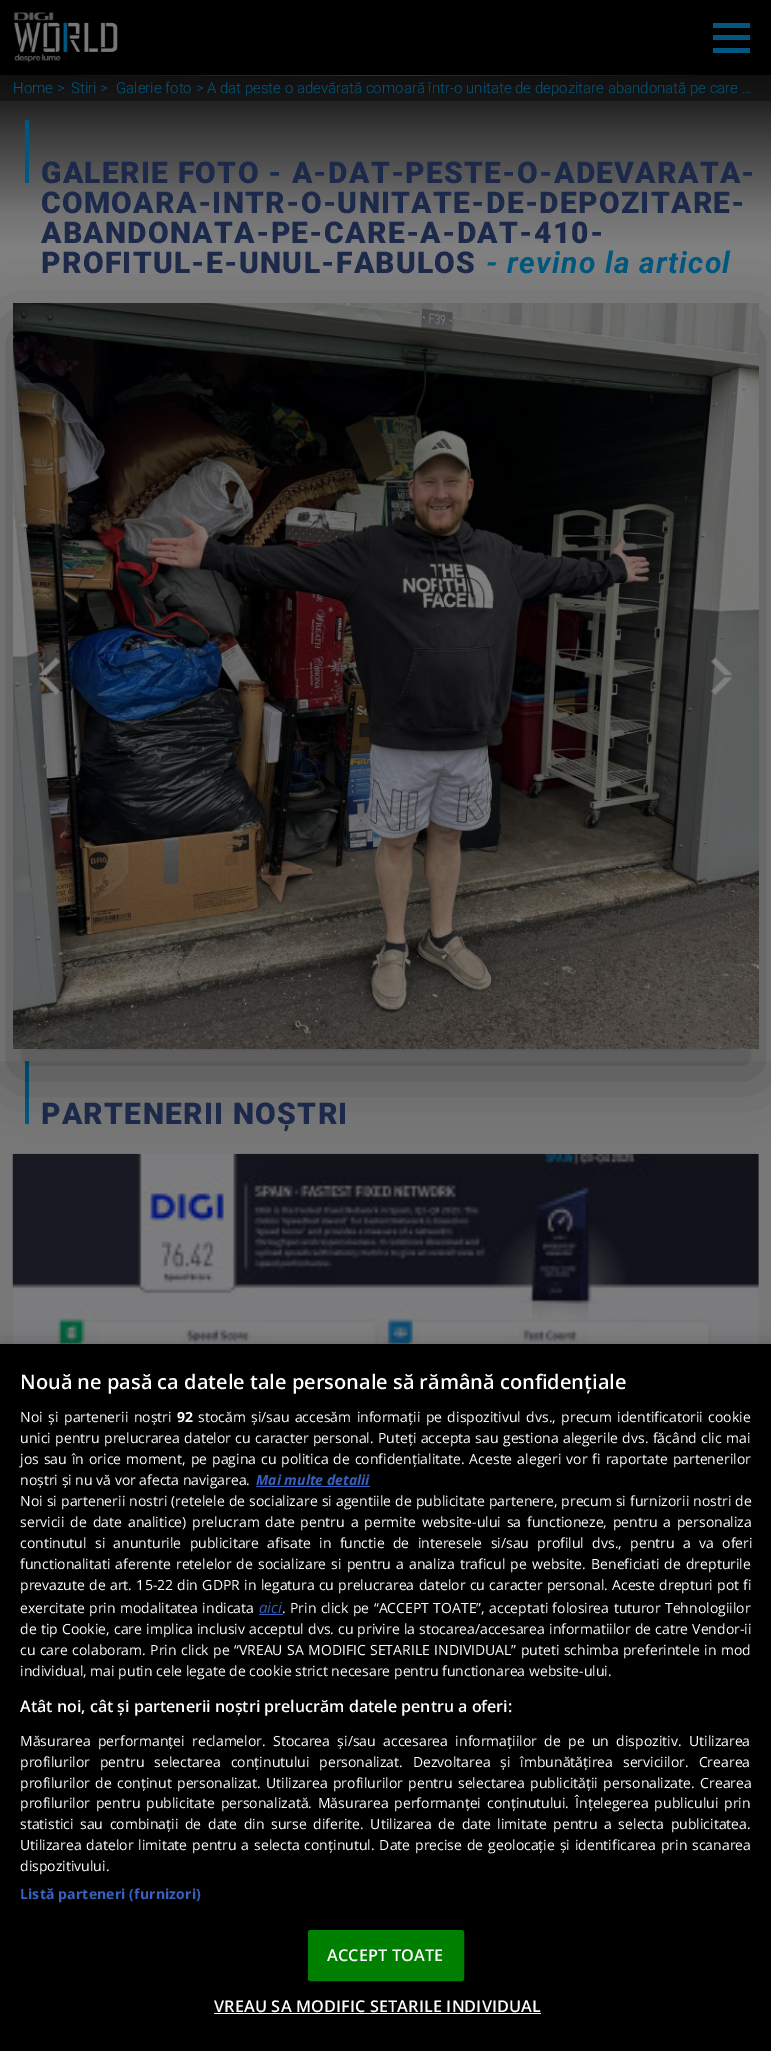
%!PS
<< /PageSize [771 2051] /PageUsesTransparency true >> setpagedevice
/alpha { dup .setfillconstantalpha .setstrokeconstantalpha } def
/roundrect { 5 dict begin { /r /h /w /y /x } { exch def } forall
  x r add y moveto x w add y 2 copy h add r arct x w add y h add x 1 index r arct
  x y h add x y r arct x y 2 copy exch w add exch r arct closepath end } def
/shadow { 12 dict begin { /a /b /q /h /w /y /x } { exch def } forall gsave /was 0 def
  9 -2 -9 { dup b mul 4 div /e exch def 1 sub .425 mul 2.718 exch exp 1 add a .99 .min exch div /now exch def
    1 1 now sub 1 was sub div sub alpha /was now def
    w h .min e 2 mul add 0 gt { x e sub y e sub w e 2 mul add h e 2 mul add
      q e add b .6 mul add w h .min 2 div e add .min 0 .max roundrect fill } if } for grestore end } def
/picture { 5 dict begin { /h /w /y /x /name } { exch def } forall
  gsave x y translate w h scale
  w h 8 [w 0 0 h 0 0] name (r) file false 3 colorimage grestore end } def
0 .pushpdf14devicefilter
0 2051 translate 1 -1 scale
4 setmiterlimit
0.502 setgray
0 0 771 2051 rectfill
0.086 setgray
0 76 771 25 rectfill
gsave newpath 0 75 moveto 771 75 lineto 771 76 lineto 0 76 lineto closepath clip newpath
<< /ShadingType 2 /ColorSpace /DeviceRGB /Coords [0 76 771 76] /Extend [true true] /Function << /FunctionType 3 /Domain [0 1] /Functions [<< /FunctionType 2 /Domain [0 1] /C0 [0.086 0.086 0.086] /C1 [0.086 0.086 0.086] /N 1 >> << /FunctionType 2 /Domain [0 1] /C0 [0.086 0.086 0.086] /C1 [0.294 0.294 0.294] /N 1 >> << /FunctionType 2 /Domain [0 1] /C0 [0.294 0.294 0.294] /C1 [0.086 0.086 0.086] /N 1 >> << /FunctionType 2 /Domain [0 1] /C0 [0.086 0.086 0.086] /C1 [0.086 0.086 0.086] /N 1 >>] /Bounds [0.05 0.5 0.95] /Encode [0 1 0 1 0 1 0 1] >> >> shfill grestore
gsave newpath 0 101 moveto 771 101 lineto 771 243 lineto 0 243 lineto closepath clip newpath
<< /ShadingType 2 /ColorSpace /DeviceRGB /Coords [386 0 386 250] /Extend [true true] /Function << /FunctionType 3 /Domain [0 1] /Functions [<< /FunctionType 2 /Domain [0 1] /C0 [0 0 0] /C1 [0 0 0] /N 1 >> << /FunctionType 2 /Domain [0 1] /C0 [0 0 0] /C1 [0.451 0.451 0.451] /N 1 >> << /FunctionType 2 /Domain [0 1] /C0 [0.451 0.451 0.451] /C1 [0.502 0.502 0.502] /N 1 >>] /Bounds [0.2 0.85] /Encode [0 1 0 1 0 1] >> >> shfill grestore
0 0.345 0.502 setrgbcolor
25 120 4 63 rectfill
0 setgray
0 6 771 75 0 15.5 0.5 shadow
0 0 771 75 rectfill
(img1.rgb) 13 12 105 51 picture
0 0.345 0.502 setrgbcolor
713 23 37 5 rectfill
713 35 37 5 rectfill
713 48 37 5 rectfill
/Roboto-Light [15 0 0 -15 0 0] selectfont
13 93 moveto (Home >) show
71 93 moveto (Stiri >) show
116 93 moveto (Galerie foto > A dat peste o adevărată comoară într-o unitate de depozitare abandonată pe care …) show
/Roboto-Black [30 0 0 -30 0 0] selectfont
0.11 0.161 0.29 setrgbcolor
41 183 moveto 1.25 0 (GALERIE FOTO - A-DAT-PESTE-O-ADEVARATA-) ashow
41 213 moveto 1.25 0 (COMOARA-INTR-O-UNITATE-DE-DEPOZITARE-) ashow
41 243 moveto 1.25 0 (ABANDONATA-PE-CARE-A-DAT-410-) ashow
41 273 moveto 1.25 0 (PROFITUL-E-UNUL-FABULOS) ashow
/Roboto-BoldItalic [30 0 0 -30 0 0] selectfont
0 0.345 0.502 setrgbcolor
486 273 moveto 1.25 0 (- revino la articol) ashow
0.471 setgray
0 1061 771 283 rectfill
0 0.345 0.502 setrgbcolor
25 1061 4 63 rectfill
0 setgray
13 328 746 746 0 31 0.35 shadow
(img2.rgb) 13 303 746 746 picture
(img3.rgb) 38 657 22 38 picture
(img4.rgb) 711 657 22 38 picture
/Roboto-Black [30 0 0 -30 0 0] selectfont
0.11 0.161 0.29 setrgbcolor
41 1124 moveto 1.25 0 (PARTENERII NOȘTRI) ashow
(img5.rgb) 12 1153 747 191 picture
0 setgray
0 1344 771 707 0 11 0.2 shadow
0 1344 771 707 rectfill
/OpenSans-SemiBold [20 0 0 -20 0 0] selectfont
1 setgray
20 1389 moveto (Nouă ne pasă ca datele tale personale să rămână confidențiale) show
/OpenSans-Regular [14 0 0 -14 0 0] selectfont
20 1422 moveto 2 0 32 (Noi și partenerii noștri) widthshow
/OpenSans-Bold [14 0 0 -14 0 0] selectfont
177 1422 moveto (92) show
/OpenSans-Regular [14 0 0 -14 0 0] selectfont
198 1422 moveto 1.75 0 32 (stocăm și/sau accesăm informații pe dispozitivul dvs., precum identificatorii cookie) widthshow
20 1443 moveto 0.75 0 32 (unici pentru prelucrarea datelor cu caracter personal. Puteți accepta sau gestiona alegerile dvs. făcând clic mai) widthshow
20 1464 moveto 1.4 0 32 (jos sau în orice moment, pe pagina cu politica de confidențialitate. Aceste alegeri vor fi raportate partenerilor) widthshow
20 1485 moveto (noștri și nu vă vor afecta navigarea.) show
/OpenSans-BoldItalic [14 0 0 -14 0 0] selectfont
0.22 0.376 0.745 setrgbcolor
256 1485 moveto (Mai multe detalii) show
256 1486 114 1 rectfill
/OpenSans-Regular [14 0 0 -14 0 0] selectfont
1 setgray
20 1506 moveto 0.5 0 32 (Noi si partenerii nostri \(retelele de socializare si agentiile de publicitate partenere, precum si furnizorii nostri de) widthshow
20 1527 moveto 2.25 0 32 (servicii de date analitice\) prelucram date pentru a permite website-ului sa functioneze, pentru a personaliza) widthshow
20 1548 moveto 4.75 0 32 (continutul si anunturile publicitare afisate in functie de interesele si/sau profilul dvs., pentru a va oferi) widthshow
20 1569 moveto 1.5 0 32 (functionalitati aferente retelelor de socializare si pentru a analiza traficul pe website. Beneficiati de drepturile) widthshow
20 1590 moveto 0.7 0 32 (prevazute de art. 15-22 din GDPR in legatura cu prelucrarea datelor cu caracter personal. Aceste drepturi pot fi) widthshow
20 1613 moveto 0.8 0 32 (exercitate prin modalitatea indicata) widthshow
/OpenSans-Italic [15 0 0 -15 0 0] selectfont
0.22 0.376 0.745 setrgbcolor
259 1613 moveto (aici) show
259 1614 24 1 rectfill
/OpenSans-Regular [14 0 0 -14 0 0] selectfont
1 setgray
282 1613 moveto 0.75 0 32 (. Prin click pe “ACCEPT TOATE”, acceptati folosirea tuturor Tehnologiilor) widthshow
20 1634 moveto 0.5 0 32 (de tip Cookie, care implica inclusiv acceptul dvs. cu privire la stocarea/accesarea informatiilor de catre Vendor-ii) widthshow
20 1655 moveto 0.8 0 32 (cu care colaboram. Prin click pe “VREAU SA MODIFIC SETARILE INDIVIDUAL” puteti schimba preferintele in mod) widthshow
20 1676 moveto (individual, mai putin cele legate de cookie strict necesare pentru functionarea website-ului.) show
/OpenSans-SemiBold [16 0 0 -16 0 0] selectfont
20 1712 moveto (Atât noi, cât și partenerii noștri prelucrăm datele pentru a oferi:) show
/OpenSans-Regular [14 0 0 -14 0 0] selectfont
20 1746 moveto 3.75 0 32 (Măsurarea performanței reclamelor. Stocarea și/sau accesarea informațiilor de pe un dispozitiv. Utilizarea) widthshow
20 1767 moveto 6.25 0 32 (profilurilor pentru selectarea conținutului personalizat. Dezvoltarea și îmbunătățirea serviciilor. Crearea) widthshow
20 1788 moveto 1.75 0 32 (profilurilor de conținut personalizat. Utilizarea profilurilor pentru selectarea publicității personalizate. Crearea) widthshow
20 1808 moveto 2.25 0 32 (profilurilor pentru publicitate personalizată. Măsurarea performanței conținutului. Înțelegerea publicului prin) widthshow
20 1829 moveto 3 0 32 (statistici sau combinații de date din surse diferite. Utilizarea de date limitate pentru a selecta publicitatea.) widthshow
20 1850 moveto 1.25 0 32 (Utilizarea datelor limitate pentru a selecta conținutul. Date precise de geolocație și identificarea prin scanarea) widthshow
20 1871 moveto (dispozitivului.) show
/OpenSans-Bold [14 0 0 -14 0 0] selectfont
0.22 0.376 0.745 setrgbcolor
20 1899 moveto 0.15 0 (Listă parteneri \(furnizori\)) ashow
0 0.502 0 setrgbcolor
308.5 1930.5 155 50 2 roundrect gsave fill grestore
stroke
/OpenSans-SemiBold [16.25 0 0 -16.25 0 0] selectfont
1 setgray
327 1961 moveto 0.15 0 (ACCEPT TOATE) ashow
214 2012 moveto 0.15 0 (VREAU SA MODIFIC SETARILE INDIVIDUAL) ashow
214 2013 327 1 rectfill
.poppdf14devicefilter showpage
